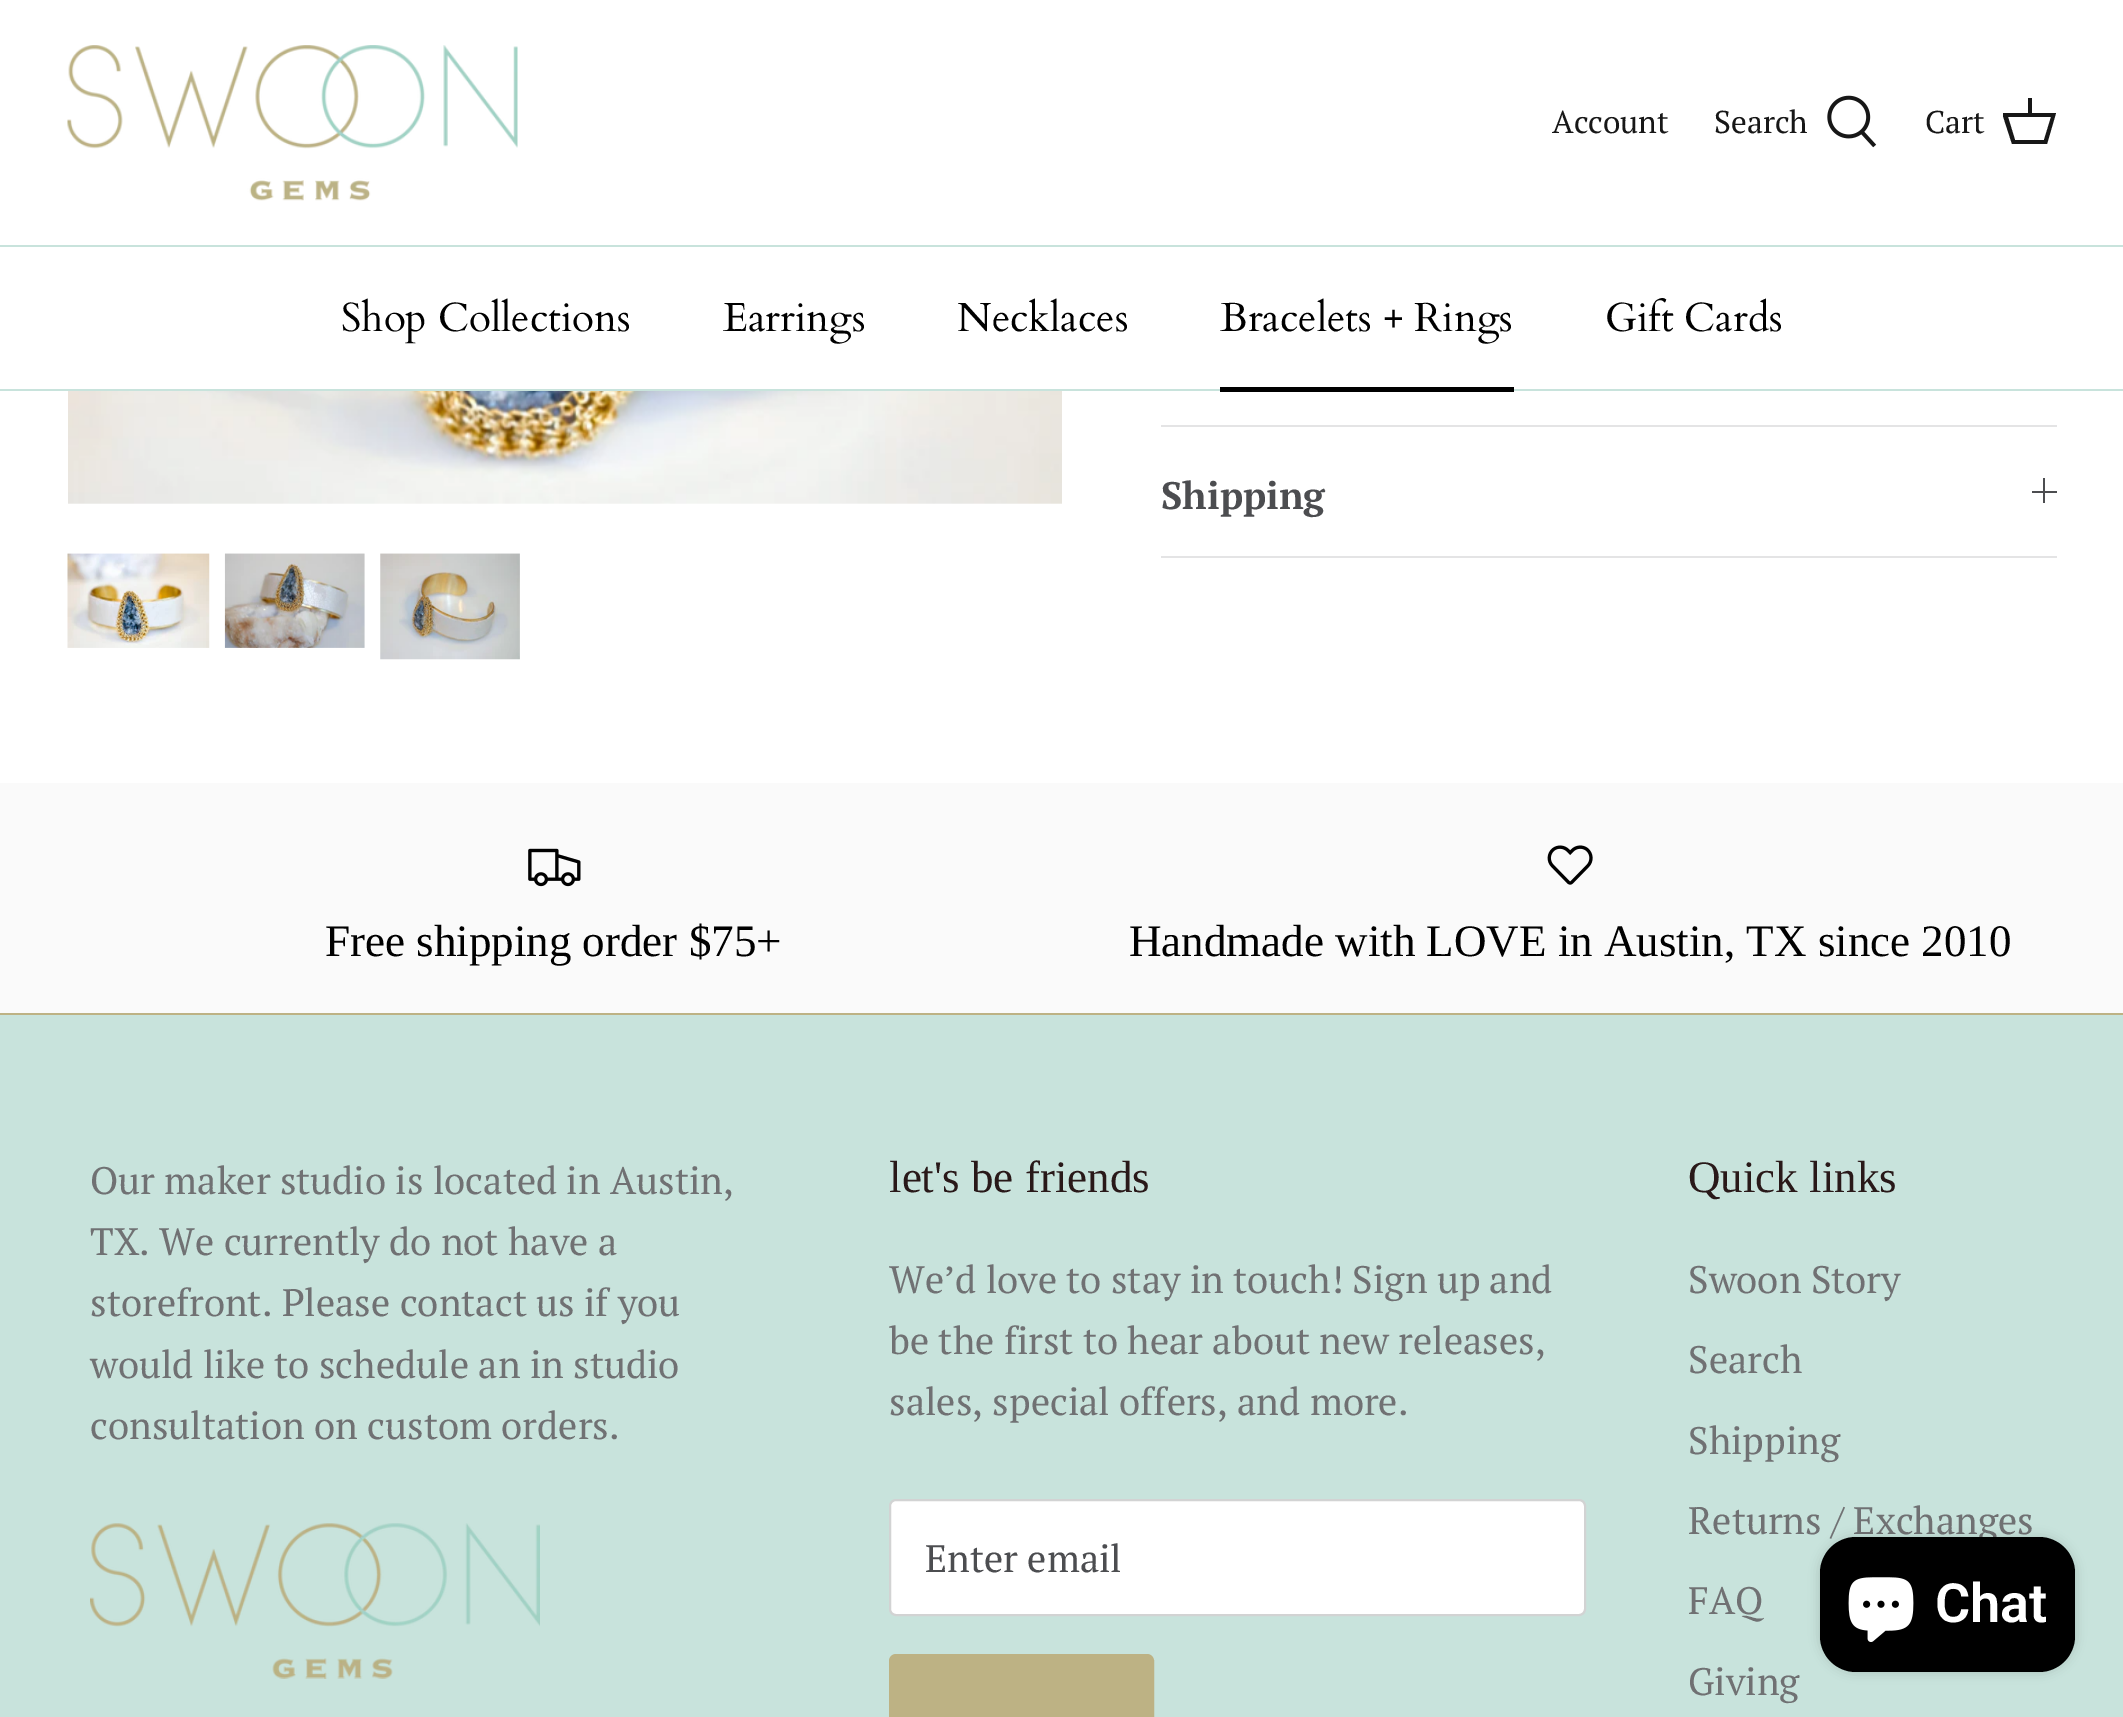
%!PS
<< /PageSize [2123 1717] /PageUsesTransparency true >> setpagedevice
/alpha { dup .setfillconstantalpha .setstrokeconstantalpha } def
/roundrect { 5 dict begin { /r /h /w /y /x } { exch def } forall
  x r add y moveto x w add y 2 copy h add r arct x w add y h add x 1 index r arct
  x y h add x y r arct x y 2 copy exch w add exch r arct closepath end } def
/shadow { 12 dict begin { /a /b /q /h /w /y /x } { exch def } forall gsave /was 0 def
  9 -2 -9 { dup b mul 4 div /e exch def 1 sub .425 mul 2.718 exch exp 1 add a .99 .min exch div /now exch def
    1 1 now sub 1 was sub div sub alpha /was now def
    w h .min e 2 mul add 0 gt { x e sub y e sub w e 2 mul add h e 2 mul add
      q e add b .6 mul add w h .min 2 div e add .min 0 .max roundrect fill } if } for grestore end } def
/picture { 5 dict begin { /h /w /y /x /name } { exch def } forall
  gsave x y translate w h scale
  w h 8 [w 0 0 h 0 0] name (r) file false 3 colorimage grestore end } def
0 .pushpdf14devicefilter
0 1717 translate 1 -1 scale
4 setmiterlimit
1 setgray
0 0 2123 1717 rectfill
0.784 0.89 0.863 setrgbcolor
0 245 2123 2 rectfill
(img1.rgb) 67 45 451 156 picture
/PTSerif-Regular [31.5 0 0 -31.5 0 0] selectfont
0.09 setgray
1552 133 moveto (Account) show
1714 133 moveto (Search) show
(img2.rgb) 1827 95 50 53 picture
1925 133 moveto (Cart) show
gsave
2003 95 54 54 rectclip
newpath 2028 113 moveto 2028 98 lineto 2032 98 lineto 2032 113 lineto 2056 113 lineto 2047 144 lineto 2012 144 lineto 2002 113 lineto closepath 2008 117 moveto 2015 140 lineto 2044 140 lineto 2051 117 lineto closepath fill
grestore
0.784 0.89 0.863 setrgbcolor
0 389 2123 2 rectfill
/Cardo-Regular [40.5 0 0 -40.5 0 0] selectfont
0 setgray
341 331 moveto (Shop Collections) show
723 331 moveto (Earrings) show
957 331 moveto (Necklaces) show
1220 331 moveto (Bracelets + Rings) show
1220 387 294 5 rectfill
1605 331 moveto (Gift Cards) show
(img3.rgb) 68 391 994 113 picture
(img4.rgb) 67 553 143 95 picture
(img5.rgb) 224 553 141 95 picture
(img6.rgb) 380 553 140 107 picture
0.894 0.894 0.898 setrgbcolor
1161 425 896 2 rectfill
1161 556 896 2 rectfill
/PTSerif-Bold [38.25 0 0 -38.25 0 0] selectfont
0.298 0.302 0.314 setrgbcolor
1161 509 moveto (Shipping) show
2043 478 2 25 rectfill
2032 491 25 2 rectfill
0.784 0.89 0.863 setrgbcolor
0 1015 2123 702 rectfill
0.98 setgray
0 783 2123 230 rectfill
(img7.rgb) 528 848 53 39 picture
/LiberationSerif-Regular [45 0 0 -45 0 0] selectfont
0 setgray
325 956 moveto (Free shipping order $75+) show
(img8.rgb) 1547 845 46 40 picture
1129 956 moveto (Handmade with LOVE in Austin, TX since 2010) show
0.741 0.698 0.518 setrgbcolor
0 1013 2123 2 rectfill
/PTSerif-Regular [38.25 0 0 -38.25 0 0] selectfont
0.439 0.443 0.451 setrgbcolor
90 1194 moveto (Our maker studio is located in Austin,) show
90 1255 moveto (TX. We currently do not have a) show
90 1316 moveto (storefront. Please contact us if you) show
90 1378 moveto (would like to schedule an in studio) show
90 1439 moveto (consultation on custom orders.) show
(img9.rgb) 90 1523 450 156 picture
/LiberationSerif-Regular [45 0 0 -45 0 0] selectfont
0.161 0.098 0.098 setrgbcolor
889 1192 moveto (let's be friends) show
/PTSerif-Regular [38.25 0 0 -38.25 0 0] selectfont
0.439 0.443 0.451 setrgbcolor
889 1293 moveto (We’d love to stay in touch! Sign up and) show
889 1354 moveto (be the first to hear about new releases,) show
889 1415 moveto (sales, special offers, and more.) show
1 setgray
890 1500 695 115 6 roundrect gsave fill grestore
0.824 0.827 0.827 setrgbcolor
2 setlinewidth
stroke
0.298 0.302 0.314 setrgbcolor
925 1572 moveto (Enter email) show
0.741 0.698 0.518 setrgbcolor
890 1655 263 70 6 roundrect gsave fill grestore
stroke
/LiberationSerif-Regular [45 0 0 -45 0 0] selectfont
0.161 0.098 0.098 setrgbcolor
1688 1192 moveto (Quick links) show
/PTSerif-Regular [38.25 0 0 -38.25 0 0] selectfont
0.439 0.443 0.451 setrgbcolor
1688 1293 moveto (Swoon Story) show
1688 1373 moveto (Search) show
1688 1454 moveto (Shipping) show
1688 1534 moveto (Returns / Exchanges) show
1688 1614 moveto (FAQ) show
1688 1695 moveto (Giving) show
0 setgray
1820 1537 255 135 36 5.5 0.15 shadow
1820 1537 255 135 36 roundrect fill
(img10.rgb) 1848 1577 66 65 picture
/Roboto-SemiBold [54 0 0 -54 0 0] selectfont
1 setgray
1935 1622 moveto (Chat) show
.poppdf14devicefilter showpage
